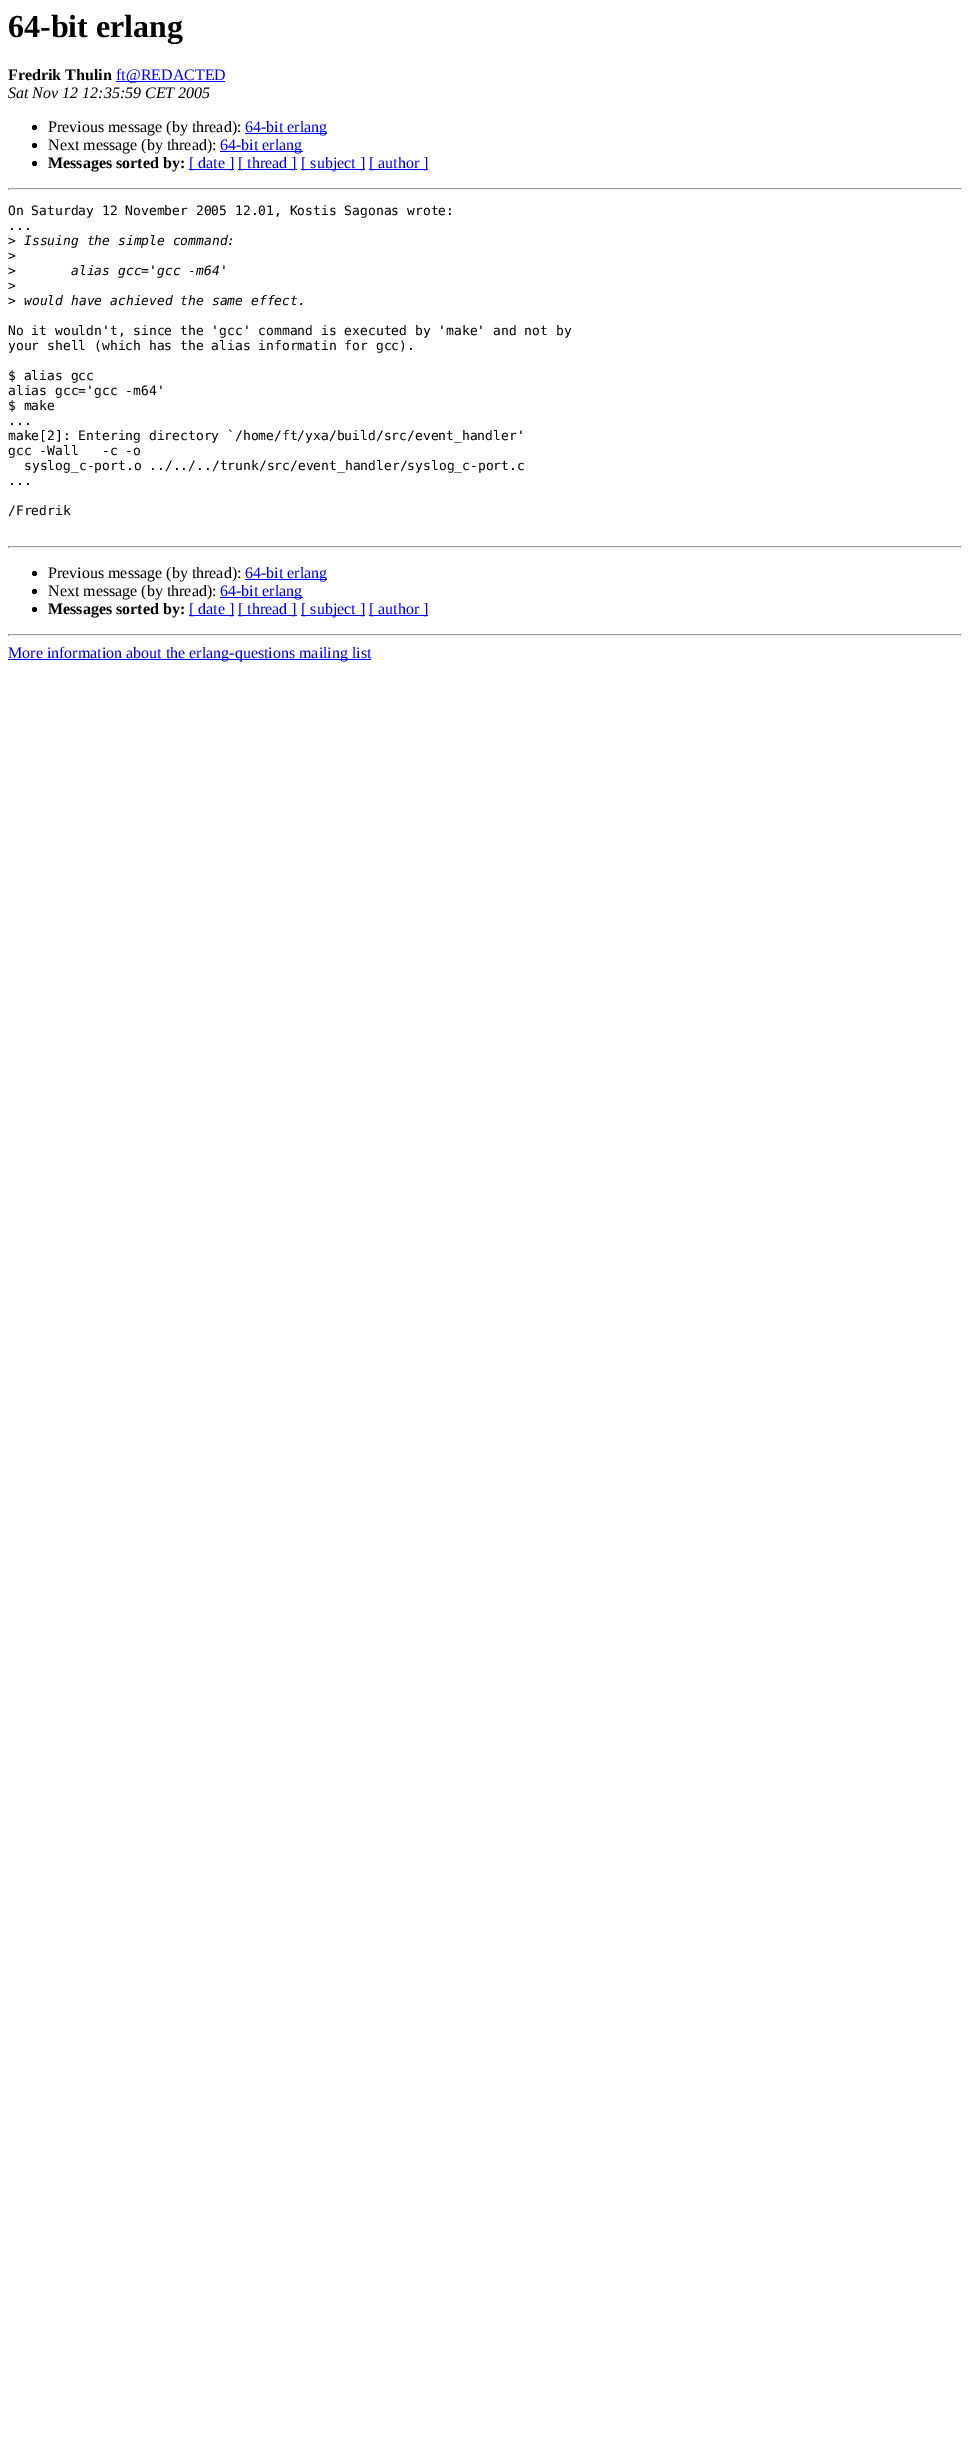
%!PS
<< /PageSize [970 2462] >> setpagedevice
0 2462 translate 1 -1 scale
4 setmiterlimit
1 setgray
0 0 970 2462 rectfill
/LiberationSerif-Bold [32 0 0 -32 0 0] selectfont
0 setgray
8 37 moveto (64-bit erlang) show
/LiberationSerif-Bold [16 0 0 -16 0 0] selectfont
8 80 moveto (Fredrik Thulin) show
0 0 0.933 setrgbcolor
116 81 109 1 rectfill
/LiberationSerif-Regular [16 0 0 -16 0 0] selectfont
116 80 moveto (ft@REDACTED) show
/LiberationSerif-Italic [16 0 0 -16 0 0] selectfont
0 setgray
8 98 moveto (Sat Nov 12 12:35:59 CET 2005) show
newpath 34.5 127.5 2.5 0 360 arc closepath fill
/LiberationSerif-Regular [16 0 0 -16 0 0] selectfont
48 132 moveto (Previous message \(by thread\):) show
0 0 0.933 setrgbcolor
245 133 82 1 rectfill
245 132 moveto (64-bit erlang) show
0 setgray
newpath 34.5 145.5 2.5 0 360 arc closepath fill
48 150 moveto (Next message \(by thread\):) show
0 0 0.933 setrgbcolor
220 151 83 1 rectfill
220 150 moveto (64-bit erlang) show
0 setgray
newpath 34.5 163.5 2.5 0 360 arc closepath fill
/LiberationSerif-Bold [16 0 0 -16 0 0] selectfont
48 168 moveto (Messages sorted by:) show
0 0 0.933 setrgbcolor
189 169 45 1 rectfill
/LiberationSerif-Regular [16 0 0 -16 0 0] selectfont
189 168 moveto ([ date ]) show
238 169 59 1 rectfill
238 168 moveto ([ thread ]) show
301 169 64 1 rectfill
301 168 moveto ([ subject ]) show
369 169 59 1 rectfill
369 168 moveto ([ author ]) show
0.624 setgray
8 188 954 1 rectfill
0.933 setgray
961 188 1 2 rectfill
8 189 954 1 rectfill
0.624 setgray
8 188 1 2 rectfill
/DejaVuSansMono-Regular [13 0 0 -13 0 0] selectfont
0 setgray
8 215 moveto (On Saturday 12 November 2005 12.01, Kostis Sagonas wrote:) show
8 230 moveto (...) show
8 245 moveto (>) show
/DejaVuSansMono-Italic [13 0 0 -13 0 0] selectfont
24 245 moveto (Issuing the simple command:) show
/DejaVuSansMono-Regular [13 0 0 -13 0 0] selectfont
8 260 moveto (>) show
8 275 moveto (>) show
/DejaVuSansMono-Italic [13 0 0 -13 0 0] selectfont
71 275 moveto (alias gcc='gcc -m64') show
/DejaVuSansMono-Regular [13 0 0 -13 0 0] selectfont
8 290 moveto (>) show
8 305 moveto (>) show
/DejaVuSansMono-Italic [13 0 0 -13 0 0] selectfont
24 305 moveto (would have achieved the same effect.) show
/DejaVuSansMono-Regular [13 0 0 -13 0 0] selectfont
8 335 moveto (No it wouldn't, since the 'gcc' command is executed by 'make' and not by) show
8 350 moveto (your shell \(which has the alias informatin for gcc\).) show
8 380 moveto ($ alias gcc) show
8 395 moveto (alias gcc='gcc -m64') show
8 410 moveto ($ make) show
8 425 moveto (...) show
8 440 moveto (make[2]: Entering directory `/home/ft/yxa/build/src/event_handler') show
8 455 moveto (gcc -Wall   -c -o) show
24 470 moveto (syslog_c-port.o ../../../trunk/src/event_handler/syslog_c-port.c) show
8 485 moveto (...) show
8 515 moveto (/Fredrik) show
0.624 setgray
8 546 954 1 rectfill
0.933 setgray
961 546 1 2 rectfill
8 547 954 1 rectfill
0.624 setgray
8 546 1 2 rectfill
0 setgray
newpath 34.5 573.5 2.5 0 360 arc closepath fill
/LiberationSerif-Regular [16 0 0 -16 0 0] selectfont
48 578 moveto (Previous message \(by thread\):) show
0 0 0.933 setrgbcolor
245 579 82 1 rectfill
245 578 moveto (64-bit erlang) show
0 setgray
newpath 34.5 591.5 2.5 0 360 arc closepath fill
48 596 moveto (Next message \(by thread\):) show
0 0 0.933 setrgbcolor
220 597 83 1 rectfill
220 596 moveto (64-bit erlang) show
0 setgray
newpath 34.5 609.5 2.5 0 360 arc closepath fill
/LiberationSerif-Bold [16 0 0 -16 0 0] selectfont
48 614 moveto (Messages sorted by:) show
0 0 0.933 setrgbcolor
189 615 45 1 rectfill
/LiberationSerif-Regular [16 0 0 -16 0 0] selectfont
189 614 moveto ([ date ]) show
238 615 59 1 rectfill
238 614 moveto ([ thread ]) show
301 615 64 1 rectfill
301 614 moveto ([ subject ]) show
369 615 59 1 rectfill
369 614 moveto ([ author ]) show
0.624 setgray
8 634 954 1 rectfill
0.933 setgray
961 634 1 2 rectfill
8 635 954 1 rectfill
0.624 setgray
8 634 1 2 rectfill
0 0 0.933 setrgbcolor
8 659 363 1 rectfill
8 658 moveto (More information about the erlang-questions mailing list) show
showpage
